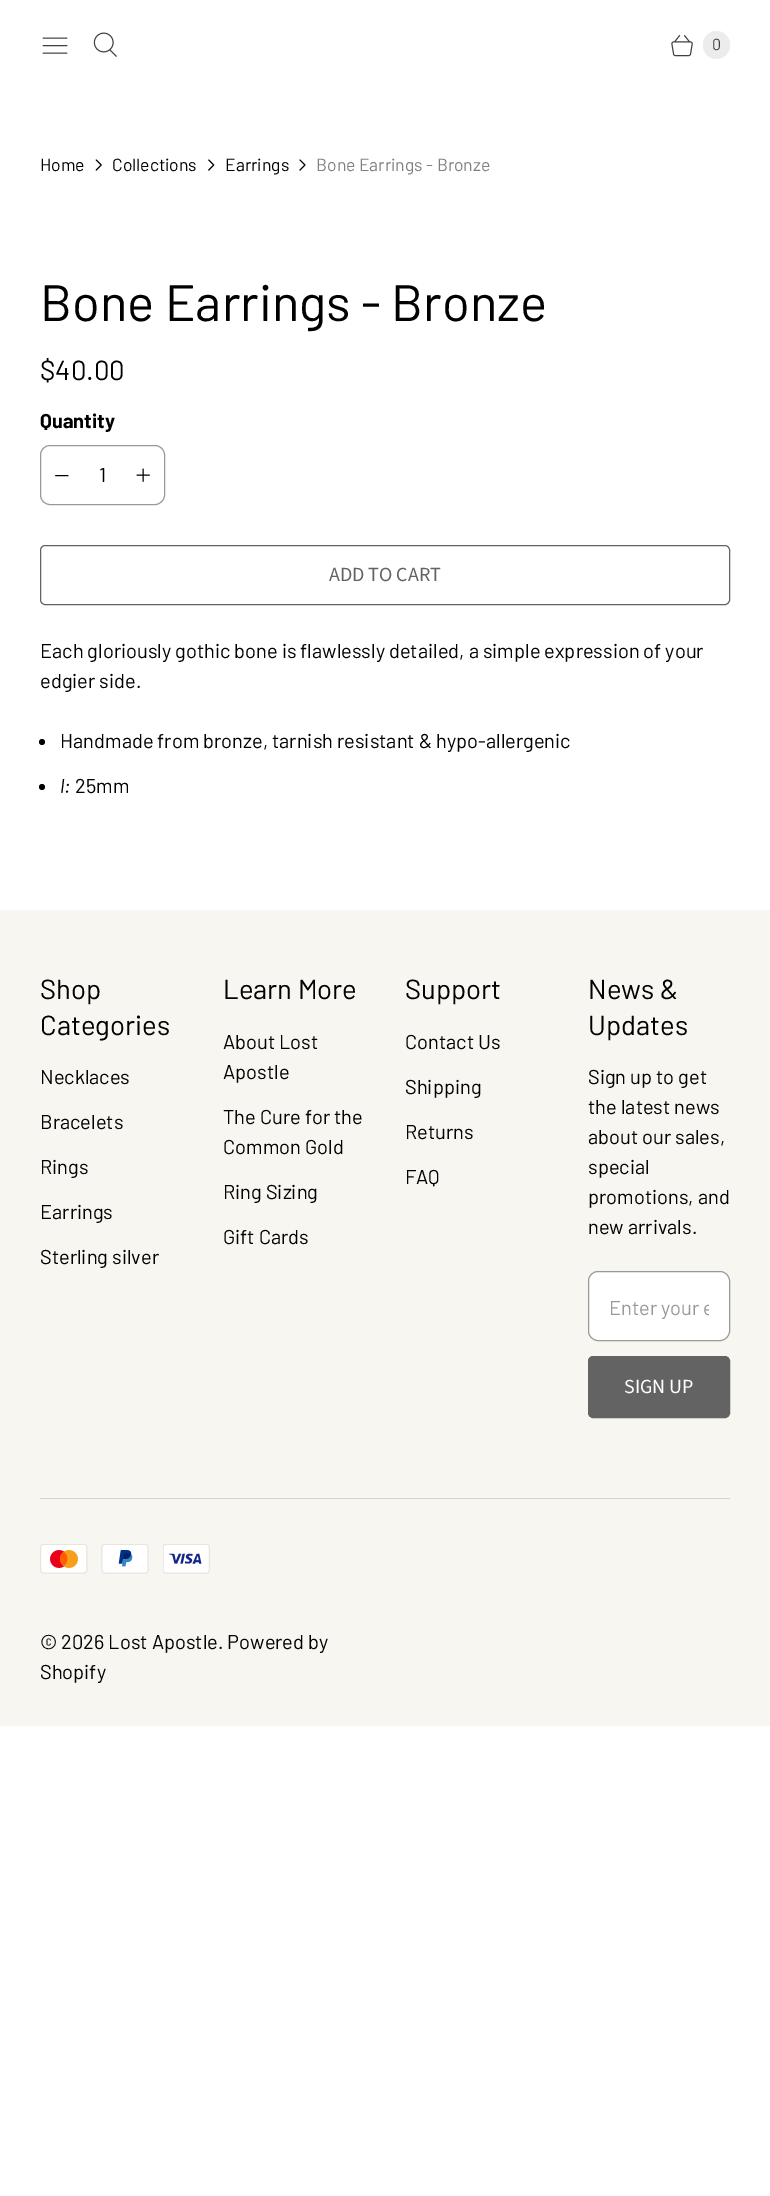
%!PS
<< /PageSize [770 2196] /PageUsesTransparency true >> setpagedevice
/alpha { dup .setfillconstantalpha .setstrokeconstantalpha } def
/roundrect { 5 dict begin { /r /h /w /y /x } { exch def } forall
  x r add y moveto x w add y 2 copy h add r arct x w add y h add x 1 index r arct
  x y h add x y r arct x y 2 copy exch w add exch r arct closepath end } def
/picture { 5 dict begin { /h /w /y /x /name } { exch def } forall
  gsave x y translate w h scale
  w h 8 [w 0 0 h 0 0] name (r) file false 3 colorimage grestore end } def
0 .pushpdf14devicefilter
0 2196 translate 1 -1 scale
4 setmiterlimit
1 setgray
0 0 770 2196 rectfill
(img1.rgb) 42 37 26 17 picture
(img2.rgb) 93 32 24 25 picture
(img3.rgb) 671 35 22 22 picture
0.925 setgray
703 31 27 28 13.5 roundrect fill
/Barlow-Regular [16 0 0 -16 0 0] selectfont
0.251 setgray
712 50 moveto (0) show
/Barlow-Regular [17.5 0 0 -17.5 0 0] selectfont
0 setgray
40 171 moveto (Home) show
(img4.rgb) 95 159 7 12 picture
112 171 moveto (Collections) show
(img5.rgb) 208 159 7 12 picture
225 171 moveto (Earrings) show
(img6.rgb) 299 159 7 12 picture
0.502 setgray
316 171 moveto (Bone Earrings - Bronze) show
/Barlow-Regular [51 0 0 -51 0 0] selectfont
0 setgray
40 321 moveto (Bone Earrings - Bronze) show
/Barlow-Regular [27.5 0 0 -27.5 0 0] selectfont
40 380 moveto ($40.00) show
/Barlow-Bold [20 0 0 -20 0 0] selectfont
40 428 moveto (Quantity) show
0.6 setgray
40.5 445.5 124 59 9.5 roundrect stroke
(img7.rgb) 55 475 14 2 picture
/Barlow-Regular [20 0 0 -20 0 0] selectfont
0 setgray
99 482 moveto (1) show
(img8.rgb) 136 468 14 14 picture
0.388 setgray
40.5 545.5 689 59 4.5 roundrect stroke
/SourceSansPro-Regular [20 0 0 -20 0 0] selectfont
329 581 moveto (ADD TO CART) show
/Barlow-Regular [20 0 0 -20 0 0] selectfont
0 setgray
40 658 moveto (Each gloriously gothic bone is flawlessly detailed, a simple expression of your) show
40 688 moveto (edgier side.) show
newpath 42 742 3 0 360 arc closepath fill
60 748 moveto (Handmade from bronze, tarnish resistant & hypo-allergenic) show
newpath 42 787 3 0 360 arc closepath fill
/Barlow-Italic [20 0 0 -20 0 0] selectfont
60 793 moveto (l:) show
/Barlow-Regular [20 0 0 -20 0 0] selectfont
75 793 moveto (25mm) show
0.969 0.965 0.945 setrgbcolor
0 910 770 816 rectfill
/Barlow-Regular [27.5 0 0 -27.5 0 0] selectfont
0 setgray
40 999 moveto (Shop) show
40 1035 moveto (Categories) show
/Barlow-Regular [20 0 0 -20 0 0] selectfont
40 1084 moveto (Necklaces) show
40 1129 moveto (Bracelets) show
40 1174 moveto (Rings) show
40 1219 moveto (Earrings) show
40 1264 moveto (Sterling silver) show
/Barlow-Regular [27.5 0 0 -27.5 0 0] selectfont
223 999 moveto (Learn More) show
/Barlow-Regular [20 0 0 -20 0 0] selectfont
223 1049 moveto (About Lost) show
223 1079 moveto (Apostle) show
223 1124 moveto (The Cure for the) show
223 1154 moveto (Common Gold) show
223 1199 moveto (Ring Sizing) show
223 1244 moveto (Gift Cards) show
/Barlow-Regular [27.5 0 0 -27.5 0 0] selectfont
405 999 moveto (Support) show
/Barlow-Regular [20 0 0 -20 0 0] selectfont
405 1049 moveto (Contact Us) show
405 1094 moveto (Shipping) show
405 1139 moveto (Returns) show
405 1184 moveto (FAQ) show
/Barlow-Regular [27.5 0 0 -27.5 0 0] selectfont
588 999 moveto (News &) show
588 1035 moveto (Updates) show
/Barlow-Regular [20 0 0 -20 0 0] selectfont
588 1084 moveto (Sign up to get) show
588 1114 moveto (the latest news) show
588 1144 moveto (about our sales,) show
588 1174 moveto (special) show
588 1204 moveto (promotions, and) show
588 1234 moveto (new arrivals.) show
1 setgray
588 1271 142 70 10 roundrect fill
0.4 alpha
0 setgray
588.5 1271.5 141 69 9.5 roundrect stroke
gsave
609 1295 100 24 rectclip
1 alpha
0.6 setgray
609 1315 moveto (Enter your e) show
grestore
1 alpha
0.388 setgray
588.5 1356.5 141 61 4.5 roundrect gsave fill grestore
stroke
/SourceSansPro-Regular [20 0 0 -20 0 0] selectfont
1 setgray
624 1393 moveto (SIGN UP) show
0.839 0.831 0.796 setrgbcolor
40 1498 690 1 rectfill
(img9.rgb) 40 1544 48 30 picture
(img10.rgb) 101 1544 48 30 picture
(img11.rgb) 163 1544 47 30 picture
/Barlow-Regular [20 0 0 -20 0 0] selectfont
0 setgray
40 1649 moveto (© 2026 Lost Apostle. Powered by) show
40 1679 moveto (Shopify) show
.poppdf14devicefilter showpage
